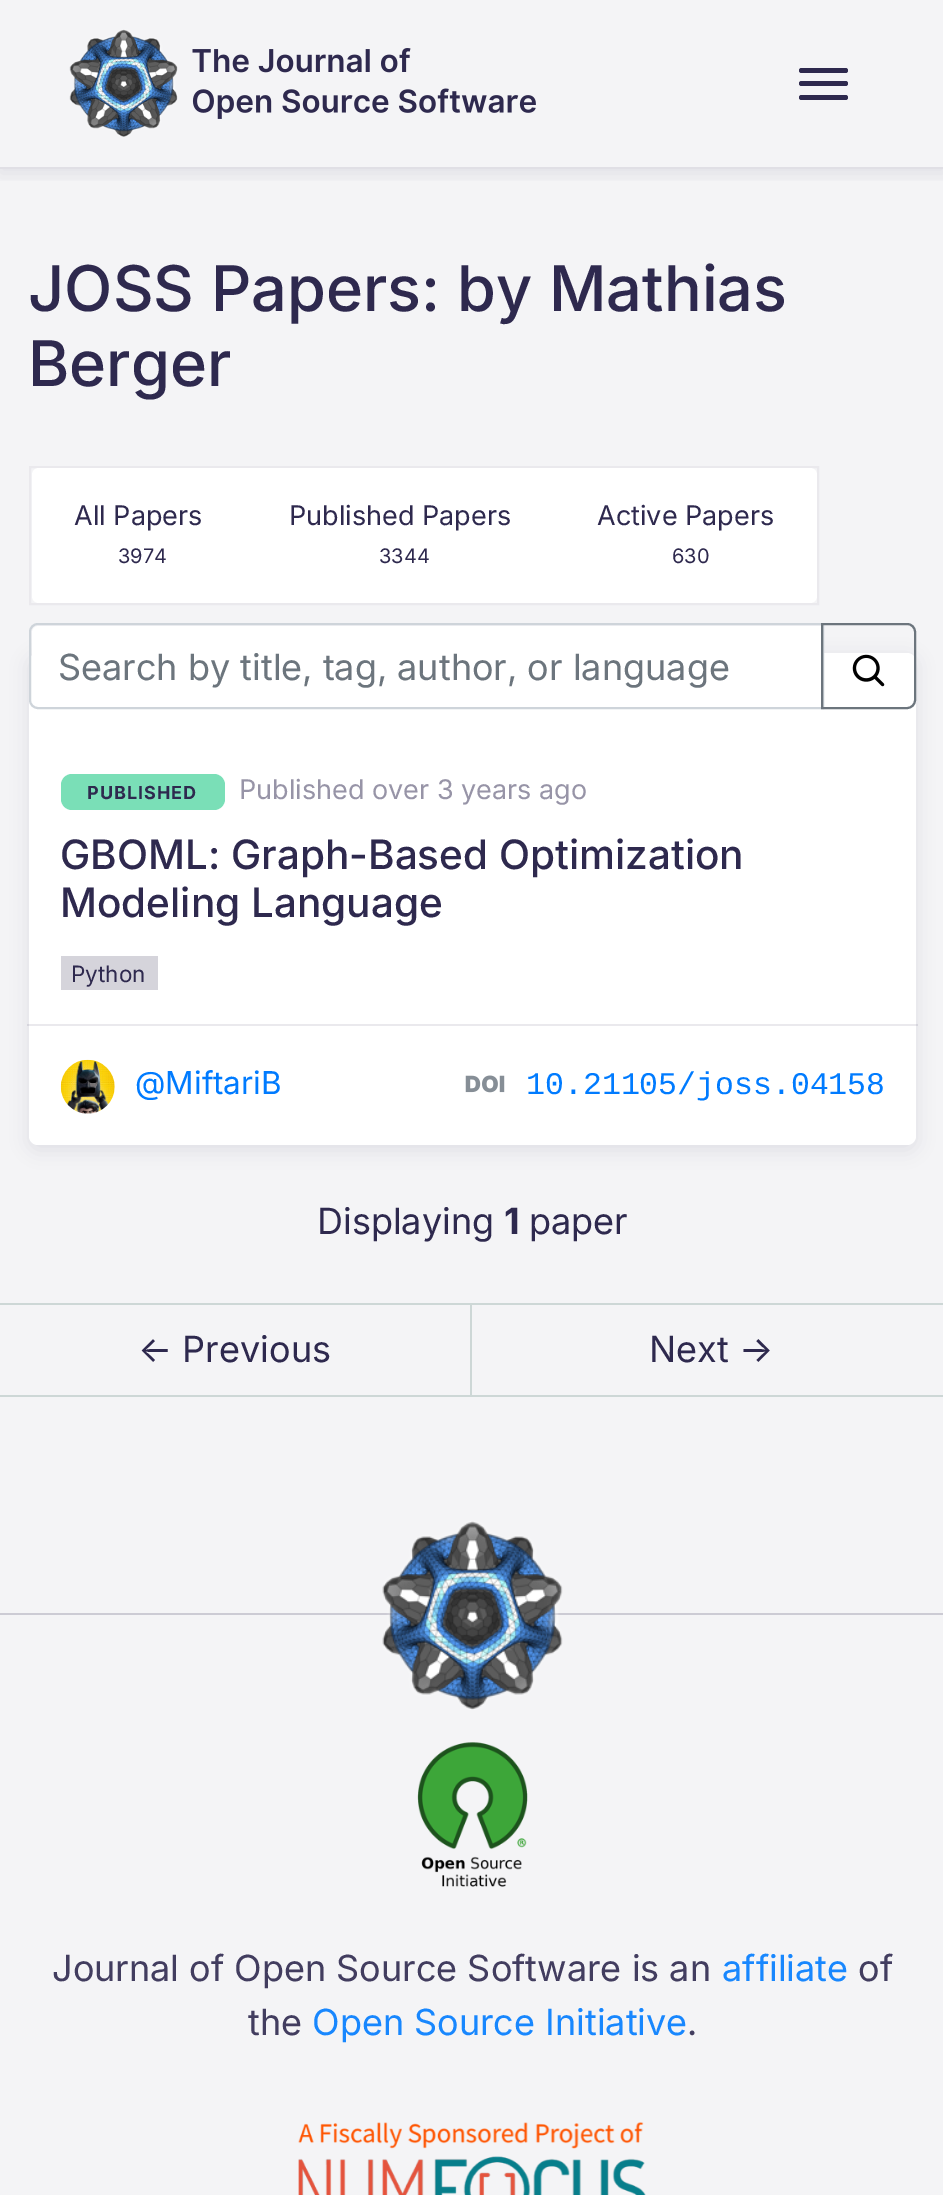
%!PS
<< /PageSize [943 2195] /PageUsesTransparency true >> setpagedevice
/alpha { dup .setfillconstantalpha .setstrokeconstantalpha } def
/roundrect { 5 dict begin { /r /h /w /y /x } { exch def } forall
  x r add y moveto x w add y 2 copy h add r arct x w add y h add x 1 index r arct
  x y h add x y r arct x y 2 copy exch w add exch r arct closepath end } def
/shadow { 12 dict begin { /a /b /q /h /w /y /x } { exch def } forall gsave /was 0 def
  9 -2 -9 { dup b mul 4 div /e exch def 1 sub .425 mul 2.718 exch exp 1 add a .99 .min exch div /now exch def
    1 1 now sub 1 was sub div sub alpha /was now def
    w h .min e 2 mul add 0 gt { x e sub y e sub w e 2 mul add h e 2 mul add
      q e add b .6 mul add w h .min 2 div e add .min 0 .max roundrect fill } if } for grestore end } def
/picture { 5 dict begin { /h /w /y /x /name } { exch def } forall
  gsave x y translate w h scale
  w h 8 [w 0 0 h 0 0] name (r) file false 3 colorimage grestore end } def
0 .pushpdf14devicefilter
0 2195 translate 1 -1 scale
4 setmiterlimit
0.957 0.957 0.965 setrgbcolor
0 0 943 2195 rectfill
gsave
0 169 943 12 rectclip
0.18 0.161 0.306 setrgbcolor
0 5 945 168 0 9 0.1 shadow
grestore
0.1 alpha
0.18 0.161 0.306 setrgbcolor
0 167 943 2 rectfill
1 alpha
(img1.rgb) 69 29 109 108 picture
(img2.rgb) 192 48 344 71 picture
799 68 49 5 2.5 roundrect fill
799 81 49 5 2.5 roundrect fill
799 95 49 5 2.5 roundrect fill
/Inter-Medium [63 0 0 -63 0 0] selectfont
28 311 moveto (JOSS Papers: by Mathias) show
28 386 moveto (Berger) show
0.918 0.914 0.929 setrgbcolor
2 setlinewidth
30 467 788 137 rectstroke
1 setgray
newpath 39 468 moveto 245 468 lineto 245 603 lineto 39 603 lineto 35 603 32 600 32 596 curveto 32 475 lineto 32 471 35 468 39 468 curveto closepath fill
/Inter-Regular [27 0 0 -27 0 0] selectfont
0.18 0.161 0.306 setrgbcolor
74 525 moveto (All Papers) show
/Inter-Regular [20 0 0 -20 0 0] selectfont
118 563 moveto (3974) show
1 setgray
245 468 309 135 rectfill
/Inter-Regular [27 0 0 -27 0 0] selectfont
0.18 0.161 0.306 setrgbcolor
289 525 moveto (Published Papers) show
/Inter-Regular [20 0 0 -20 0 0] selectfont
379 563 moveto (3344) show
1 setgray
newpath 554 468 moveto 810 468 lineto 814 468 817 471 817 475 curveto 817 596 lineto 817 600 814 603 810 603 curveto 554 603 lineto closepath fill
/Inter-Regular [27 0 0 -27 0 0] selectfont
0.18 0.161 0.306 setrgbcolor
597 525 moveto (Active Papers) show
/Inter-Regular [20 0 0 -20 0 0] selectfont
672 563 moveto (630) show
29 657 887 493 9 9 0.1 shadow
1 setgray
29 653 887 492 9 roundrect fill
newpath 39 626 moveto 821 626 lineto 821 707 lineto 39 707 lineto 35 707 32 704 32 700 curveto 32 633 lineto 32 629 35 626 39 626 curveto closepath fill
0.808 0.831 0.855 setrgbcolor
newpath 38 624 moveto 823 624 lineto 823 708 lineto 38 708 lineto 33.5 708 30 704.5 30 700 curveto 30 632 lineto 30 627.5 33.5 624 38 624 curveto closepath stroke
/Inter-Regular [36 0 0 -36 0 0] selectfont
0.424 0.459 0.49 setrgbcolor
58 680 moveto (Search by title, tag, author, or language) show
newpath 822 624 moveto 907 624 lineto 911.5 624 915 627.5 915 632 curveto 915 700 lineto 915 704.5 911.5 708 907 708 curveto 822 708 lineto closepath stroke
(img3.rgb) 852 654 33 33 picture
0.478 0.875 0.718 setrgbcolor
61 774 164 36 11 roundrect fill
/Inter-Bold [18 0 0 -18 0 0] selectfont
0.18 0.161 0.306 setrgbcolor
87 799 moveto 1 0 (PUBLISHED) ashow
/Inter-Regular [27 0 0 -27 0 0] selectfont
0.592 0.58 0.655 setrgbcolor
239 799 moveto (Published over 3 years ago) show
/Inter-Medium [40.5 0 0 -40.5 0 0] selectfont
0.18 0.161 0.306 setrgbcolor
60 869 moveto (GBOML: Graph-Based Optimization) show
60 917 moveto (Modeling Language) show
0.835 0.831 0.859 setrgbcolor
61 956 97 34 rectfill
/Inter-Regular [22.5 0 0 -22.5 0 0] selectfont
0.18 0.161 0.306 setrgbcolor
71 982 moveto (Python) show
0.1 alpha
27 1024 891 2 rectfill
1 alpha
(img4.rgb) 60 1059 55 55 picture
/Inter-Regular [31.5 0 0 -31.5 0 0] selectfont
0 0.482 1 setrgbcolor
135 1094 moveto (@MiftariB) show
(img5.rgb) 465 1075 40 18 picture
/LiberationMono-Regular [31.5 0 0 -31.5 0 0] selectfont
526 1094 moveto (10.21105/joss.04158) show
/Inter-Regular [36 0 0 -36 0 0] selectfont
0.18 0.161 0.306 setrgbcolor
317 1234 moveto (Displaying) show
/Inter-Bold [36 0 0 -36 0 0] selectfont
504 1234 moveto (1) show
/Inter-Regular [36 0 0 -36 0 0] selectfont
529 1234 moveto (paper) show
0.804 0.843 0.839 setrgbcolor
0 1303 943 2 rectfill
0 1395 943 2 rectfill
0.18 0.161 0.306 setrgbcolor
138 1362 moveto (← Previous) show
0.804 0.843 0.839 setrgbcolor
470 1303 2 94 rectfill
0.18 0.161 0.306 setrgbcolor
649 1362 moveto (Next →) show
0.8 0.796 0.831 setrgbcolor
0 1613 943 2 rectfill
(img6.rgb) 382 1521 181 189 picture
(img7.rgb) 417 1742 111 145 picture
0.259 0.239 0.373 setrgbcolor
52 1981 moveto (Journal of Open Source Software is an) show
0.094 0.529 0.996 setrgbcolor
722 1981 moveto (affiliate) show
0.259 0.239 0.373 setrgbcolor
858 1981 moveto (of) show
248 2035 moveto (the) show
0.094 0.529 0.996 setrgbcolor
312 2035 moveto (Open Source Initiative) show
0.259 0.239 0.373 setrgbcolor
687 2035 moveto (.) show
(img8.rgb) 298 2122 348 73 picture
.poppdf14devicefilter showpage
